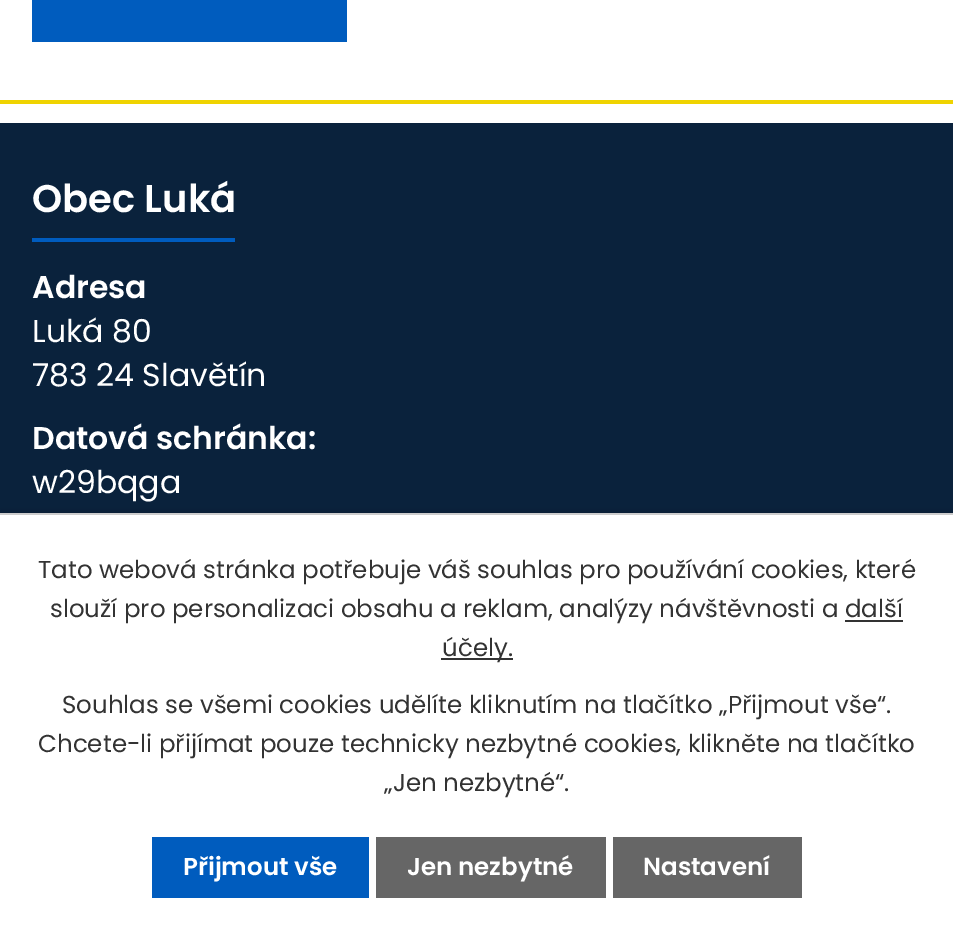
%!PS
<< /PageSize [953 930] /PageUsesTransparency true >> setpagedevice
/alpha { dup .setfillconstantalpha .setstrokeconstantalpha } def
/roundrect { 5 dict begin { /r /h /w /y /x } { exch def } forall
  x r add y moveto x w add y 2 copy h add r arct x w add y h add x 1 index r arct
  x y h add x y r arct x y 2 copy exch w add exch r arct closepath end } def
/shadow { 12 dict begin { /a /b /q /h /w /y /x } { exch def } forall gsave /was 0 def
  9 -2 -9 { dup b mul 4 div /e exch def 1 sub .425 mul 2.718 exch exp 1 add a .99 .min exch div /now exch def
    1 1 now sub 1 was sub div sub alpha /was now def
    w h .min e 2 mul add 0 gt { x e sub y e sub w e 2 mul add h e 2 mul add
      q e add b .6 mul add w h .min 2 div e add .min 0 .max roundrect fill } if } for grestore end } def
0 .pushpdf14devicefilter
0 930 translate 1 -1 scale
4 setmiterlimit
1 setgray
0 0 953 930 rectfill
0 0.361 0.745 setrgbcolor
32 0 315 42 rectfill
0.039 0.133 0.235 setrgbcolor
0 123 953 390 rectfill
0.937 0.827 0 setrgbcolor
0 100 953 4 rectfill
/Poppins-SemiBold [38.5 0 0 -38.5 0 0] selectfont
1 setgray
32 212 moveto (Obec Luká) show
0 0.361 0.745 setrgbcolor
32 238 203 4 rectfill
/Poppins-SemiBold [31.5 0 0 -31.5 0 0] selectfont
1 setgray
32 298 moveto (Adresa) show
/Poppins-Regular [31.5 0 0 -31.5 0 0] selectfont
32 342 moveto (Luká 80) show
32 386 moveto (783 24 Slavětín) show
/Poppins-SemiBold [31.5 0 0 -31.5 0 0] selectfont
32 449 moveto (Datová schránka:) show
/Poppins-Regular [31.5 0 0 -31.5 0 0] selectfont
32 493 moveto (w29bqga) show
0 setgray
0 513 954 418 0 4.5 0.2 shadow
1 setgray
0 515 953 415 rectfill
0.8 setgray
0 513 953 2 rectfill
/Poppins-Regular [24.5 0 0 -24.5 0 0] selectfont
0.2 setgray
38 578 moveto (Tato webová stránka potřebuje váš souhlas pro používání cookies, které) show
50 617 moveto (slouží pro personalizaci obsahu a reklam, analýzy návštěvnosti a další) show
441 658 72 2 rectfill
442 656 moveto (účely.) show
845 620 58 2 rectfill
62 713 moveto (Souhlas se všemi cookies udělíte kliknutím na tlačítko „Přijmout vše“.) show
38 752 moveto (Chcete-li přijímat pouze technicky nezbytné cookies, klikněte na tlačítko) show
384 791 moveto („Jen nezbytné“.) show
0 0.361 0.745 setrgbcolor
152 837 217 61 rectfill
/Poppins-SemiBold [24.5 0 0 -24.5 0 0] selectfont
1 setgray
183 875 moveto (Přijmout vše) show
0.4 setgray
376 837 230 61 rectfill
1 setgray
407 875 moveto (Jen nezbytné) show
0.4 setgray
613 837 189 61 rectfill
1 setgray
643 875 moveto (Nastavení) show
.poppdf14devicefilter showpage
